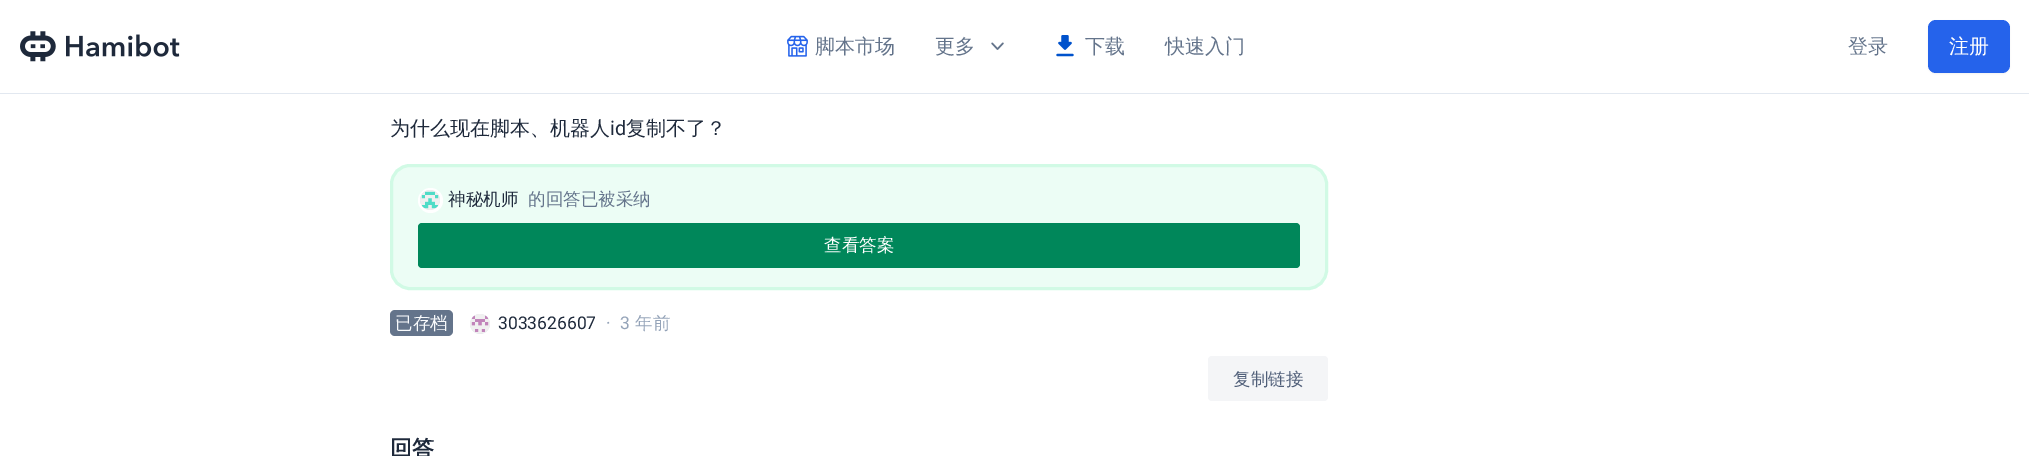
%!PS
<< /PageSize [2029 456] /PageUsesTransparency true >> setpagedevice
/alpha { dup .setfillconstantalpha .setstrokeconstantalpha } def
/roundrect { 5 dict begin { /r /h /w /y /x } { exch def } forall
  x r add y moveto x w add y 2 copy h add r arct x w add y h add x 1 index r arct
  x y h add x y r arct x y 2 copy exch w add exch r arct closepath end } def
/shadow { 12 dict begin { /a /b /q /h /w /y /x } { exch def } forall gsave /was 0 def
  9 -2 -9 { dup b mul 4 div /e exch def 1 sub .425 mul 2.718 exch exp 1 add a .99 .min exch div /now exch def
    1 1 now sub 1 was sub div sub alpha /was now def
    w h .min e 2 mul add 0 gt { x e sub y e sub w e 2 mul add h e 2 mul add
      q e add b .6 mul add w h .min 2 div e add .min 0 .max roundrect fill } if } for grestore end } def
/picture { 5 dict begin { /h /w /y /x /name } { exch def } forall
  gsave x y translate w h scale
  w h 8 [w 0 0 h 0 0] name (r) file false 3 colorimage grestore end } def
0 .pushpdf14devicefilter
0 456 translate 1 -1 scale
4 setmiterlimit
1 setgray
0 0 2029 456 rectfill
0.886 0.91 0.941 setrgbcolor
0 93 2029 1 rectfill
(img1.rgb) 20 31 160 31 picture
(img2.rgb) 787 35 21 22 picture
/WenQuanYiZenHei-Medium [20 0 0 -20 0 0] selectfont
0.392 0.455 0.545 setrgbcolor
815 53 moveto (脚本市场) show
935 53 moveto (更多) show
(img3.rgb) 991 42 13 8 picture
(img4.rgb) 1056 35 18 22 picture
1085 53 moveto (下载) show
1165 53 moveto (快速入门) show
1848 53 moveto (登录) show
0 setgray
1928 21 82 53 8 1 0.05 shadow
0.145 0.388 0.922 setrgbcolor
1928 20 82 53 8 roundrect fill
1 setgray
1949 53 moveto (注册) show
0.118 0.161 0.231 setrgbcolor
390 135 moveto (为什么现在脚本、机器人) show
/Roboto-Regular [20 0 0 -20 0 0] selectfont
610 135 moveto (id) show
/WenQuanYiZenHei-Medium [20 0 0 -20 0 0] selectfont
626 135 moveto (复制不了？) show
0.925 0.992 0.961 setrgbcolor
391.5 165.5 935 123 18.5 roundrect gsave fill grestore
0.82 0.98 0.898 setrgbcolor
3 setlinewidth
stroke
1 setgray
newpath 430.5 200.5 12.5 0 360 arc closepath fill
0.875 0.886 0.902 setrgbcolor
newpath 430 200 10 0 360 arc closepath fill
(img5.rgb) 420 190 20 20 picture
/WenQuanYiZenHei-Medium [17.5 0 0 -17.5 0 0] selectfont
0.118 0.161 0.231 setrgbcolor
448 205 moveto (神秘机师) show
0.392 0.455 0.545 setrgbcolor
528 205 moveto (的回答已被采纳) show
0 0.529 0.353 setrgbcolor
418 223 882 45 4 roundrect fill
1 setgray
824 251 moveto (查看答案) show
0.392 0.455 0.545 setrgbcolor
390 310 63 26 5 roundrect fill
0.973 0.98 0.988 setrgbcolor
395 329 moveto (已存档) show
0.875 0.886 0.902 setrgbcolor
newpath 480 324 10 0 360 arc closepath fill
(img6.rgb) 470 314 20 20 picture
/Roboto-Regular [17.5 0 0 -17.5 0 0] selectfont
0.118 0.161 0.231 setrgbcolor
498 329 moveto (3033626607) show
0.58 0.639 0.722 setrgbcolor
606 329 moveto (·) show
620 329 moveto (3) show
/WenQuanYiZenHei-Medium [17.5 0 0 -17.5 0 0] selectfont
635 329 moveto (年前) show
0.957 0.961 0.969 setrgbcolor
1208 356 120 45 4 roundrect fill
0.314 0.373 0.475 setrgbcolor
1233 385 moveto (复制链接) show
/WenQuanYiZenHei-Bold [22 0 0 -22 0 0] selectfont
0.118 0.161 0.231 setrgbcolor
390 456 moveto (回答) show
.poppdf14devicefilter showpage
